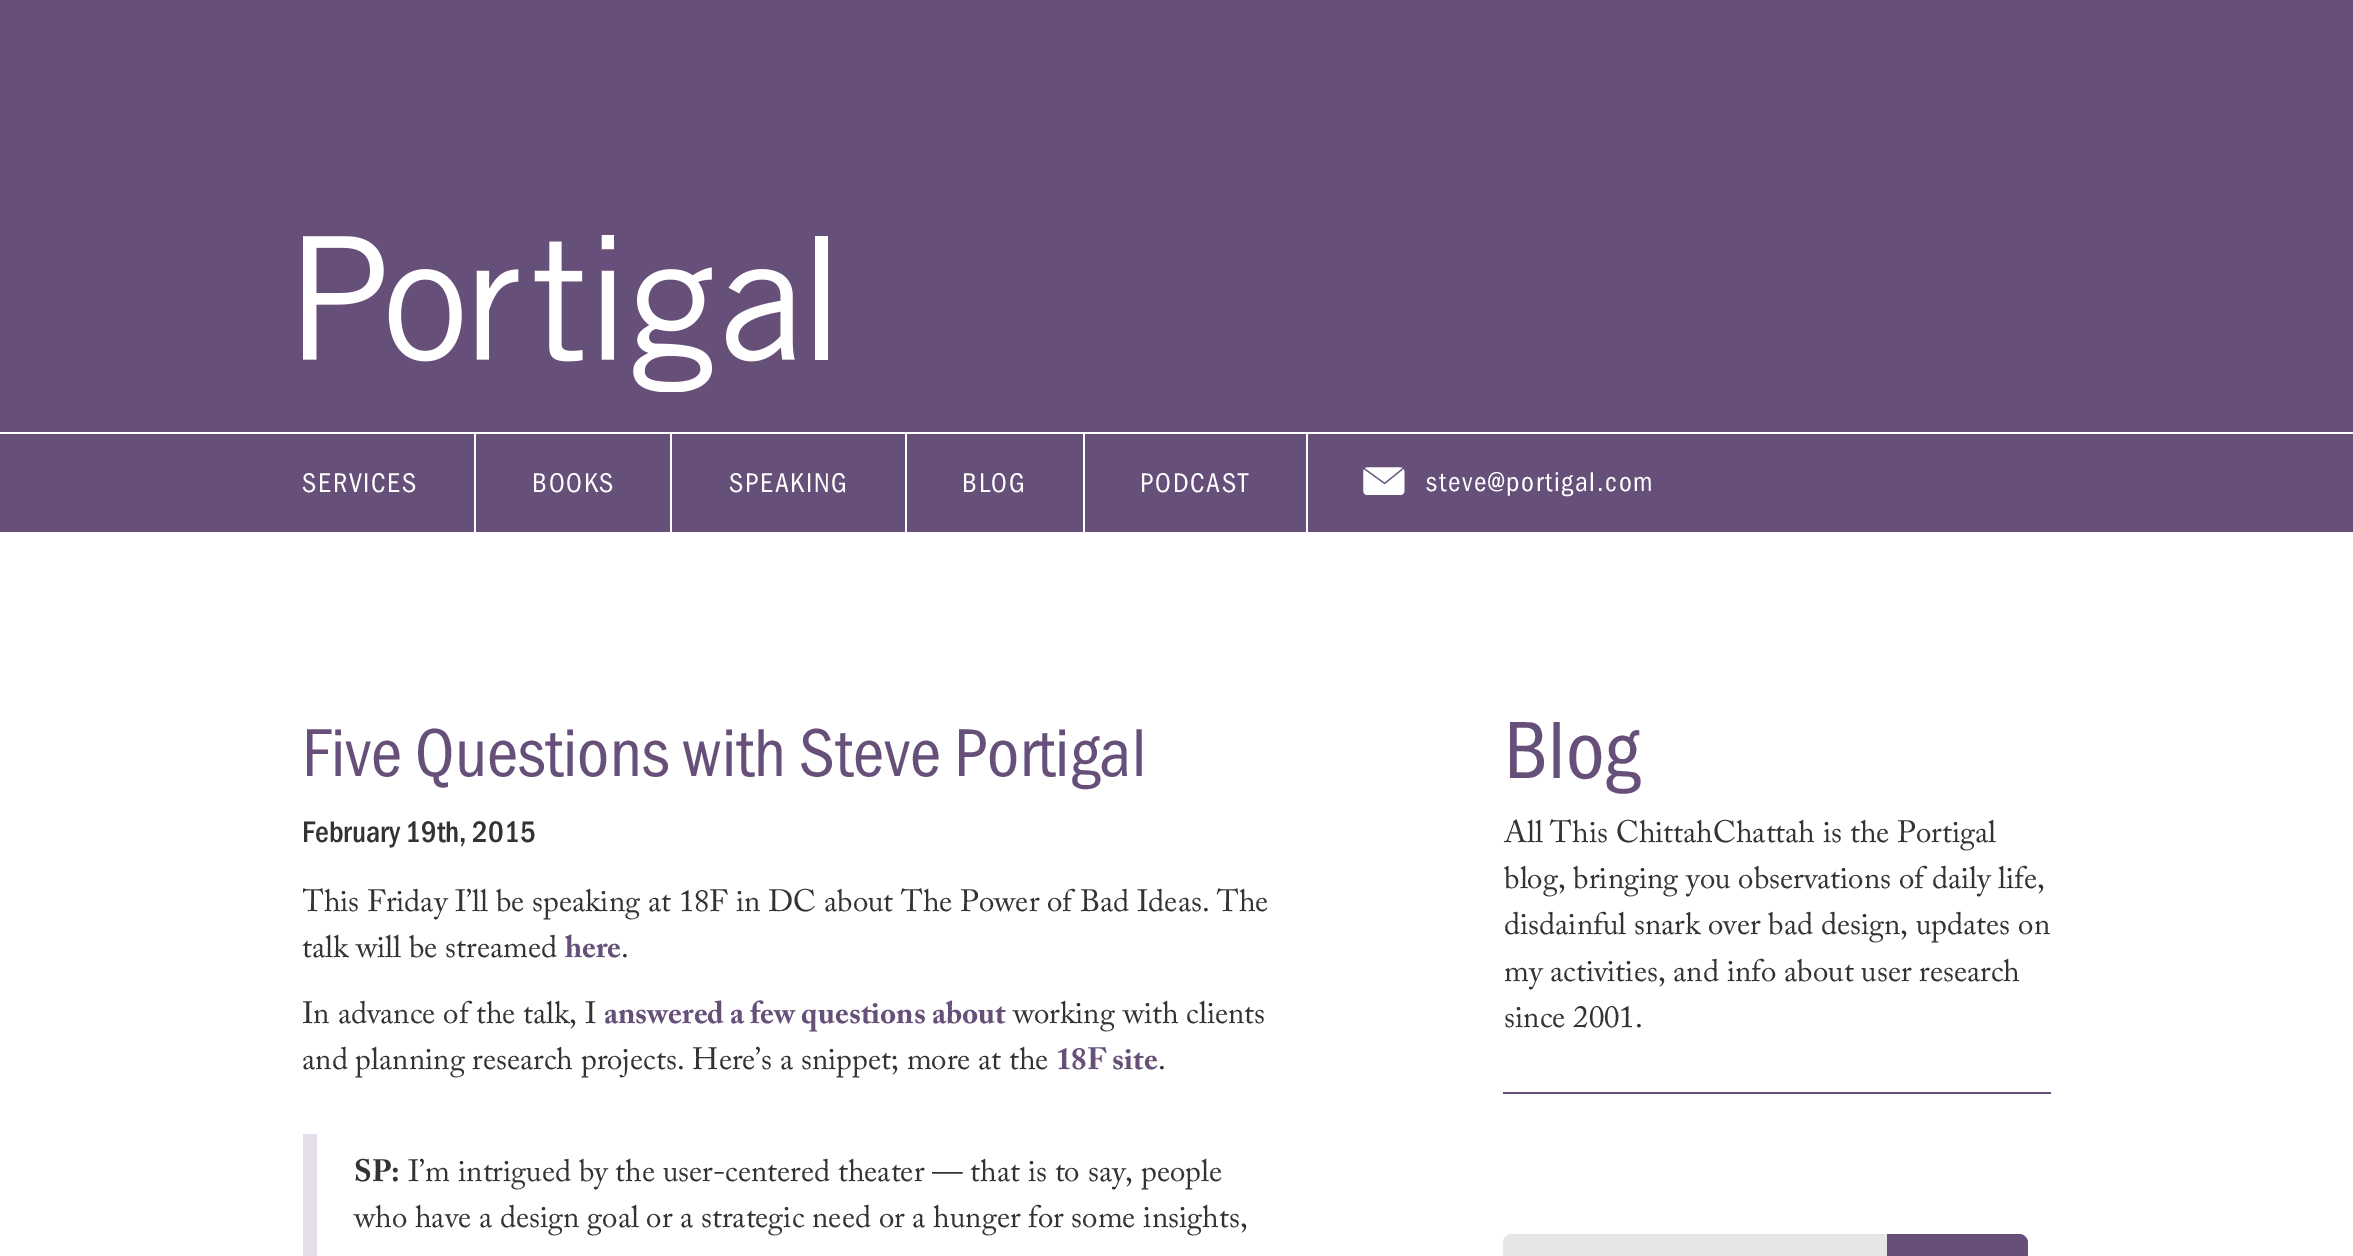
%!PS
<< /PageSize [2353 1256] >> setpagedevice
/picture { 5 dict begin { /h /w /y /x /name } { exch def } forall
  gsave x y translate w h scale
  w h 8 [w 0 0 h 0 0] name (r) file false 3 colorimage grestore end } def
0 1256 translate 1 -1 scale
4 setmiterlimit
1 setgray
0 0 2353 1256 rectfill
0.4 0.314 0.475 setrgbcolor
0 0 2353 532 rectfill
(img1.rgb) 303 235 525 157 picture
1 setgray
0 432 2353 2 rectfill
474 434 2 98 rectfill
/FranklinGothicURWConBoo-Regular [28 0 0 -28 0 0] selectfont
302 492 moveto 1.75 0 (SERVICES) ashow
670 434 2 98 rectfill
532 492 moveto 1.75 0 (BOOKS) ashow
905 434 2 98 rectfill
729 492 moveto 1.75 0 (SPEAKING) ashow
1083 434 2 98 rectfill
962 492 moveto 1.75 0 (BLOG) ashow
1306 434 2 98 rectfill
1140 492 moveto 1.75 0 (PODCAST) ashow
(img2.rgb) 1363 467 42 28 picture
1426 491 moveto 1.75 0 (steve@portigal.com) ashow
/FranklinGothicURWConBoo-Regular [70 0 0 -70 0 0] selectfont
0.4 0.314 0.475 setrgbcolor
302 776 moveto (Five Questions with Steve Portigal) show
/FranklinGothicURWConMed-Regular [30.8 0 0 -30.8 0 0] selectfont
0.2 setgray
302 842 moveto (February 19th, 2015) show
gsave
303 674 997 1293 rectclip
/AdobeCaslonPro-Regular [30.8 0 0 -30.8 0 0] selectfont
302 911 moveto (This Friday I’ll be speaking at 18F in DC about The Power of Bad Ideas. The) show
grestore
/AdobeCaslonPro-Regular [30.8 0 0 -30.8 0 0] selectfont
302 957 moveto (talk will be streamed) show
/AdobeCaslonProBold-Bold [30.8 0 0 -30.8 0 0] selectfont
0.4 0.314 0.475 setrgbcolor
565 957 moveto (here) show
/AdobeCaslonPro-Regular [30.8 0 0 -30.8 0 0] selectfont
0.2 setgray
621 957 moveto (.) show
gsave
303 674 997 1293 rectclip
302 1023 moveto (In advance of the talk, I) show
grestore
/AdobeCaslonProBold-Bold [30.8 0 0 -30.8 0 0] selectfont
0.4 0.314 0.475 setrgbcolor
604 1023 moveto (answered a few questions about) show
/AdobeCaslonPro-Regular [30.8 0 0 -30.8 0 0] selectfont
0.2 setgray
1013 1023 moveto (working with clients) show
302 1069 moveto (and planning research projects. Here’s a snippet; more at the) show
/AdobeCaslonProBold-Bold [30.8 0 0 -30.8 0 0] selectfont
0.4 0.314 0.475 setrgbcolor
1056 1069 moveto (18F site) show
/AdobeCaslonPro-Regular [30.8 0 0 -30.8 0 0] selectfont
0.2 setgray
1158 1069 moveto (.) show
0.894 0.871 0.918 setrgbcolor
303 1134 14 122 rectfill
/AdobeCaslonProBold-Bold [30.8 0 0 -30.8 0 0] selectfont
0.2 setgray
354 1181 moveto (SP:) show
/AdobeCaslonPro-Regular [30.8 0 0 -30.8 0 0] selectfont
408 1181 moveto (I’m intrigued by the user-centered theater — that is to say, people) show
354 1227 moveto (who have a design goal or a strategic need or a hunger for some insights,) show
0.4 0.314 0.475 setrgbcolor
1503 1092 548 2 rectfill
/FranklinGothicURWConBoo-Regular [84 0 0 -84 0 0] selectfont
1504 778 moveto (Blog) show
/AdobeCaslonPro-Regular [30.8 0 0 -30.8 0 0] selectfont
0.2 setgray
1504 842 moveto (All This ChittahChattah is the Portigal) show
1504 888 moveto (blog, bringing you observations of daily life,) show
1504 934 moveto (disdainful snark over bad design, updates on) show
1504 981 moveto (my activities, and info about user research) show
1504 1027 moveto (since 2001.) show
0.902 setgray
newpath 1512 1234 moveto 1887 1234 lineto 1887 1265 lineto 1512 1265 lineto 1507 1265 1503 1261 1503 1256 curveto 1503 1243 lineto 1503 1238 1507 1234 1512 1234 curveto closepath fill
0.4 0.314 0.475 setrgbcolor
newpath 1887 1234 moveto 2019 1234 lineto 2024 1234 2028 1238 2028 1243 curveto 2028 1256 lineto 2028 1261 2024 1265 2019 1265 curveto 1887 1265 lineto closepath fill
showpage
